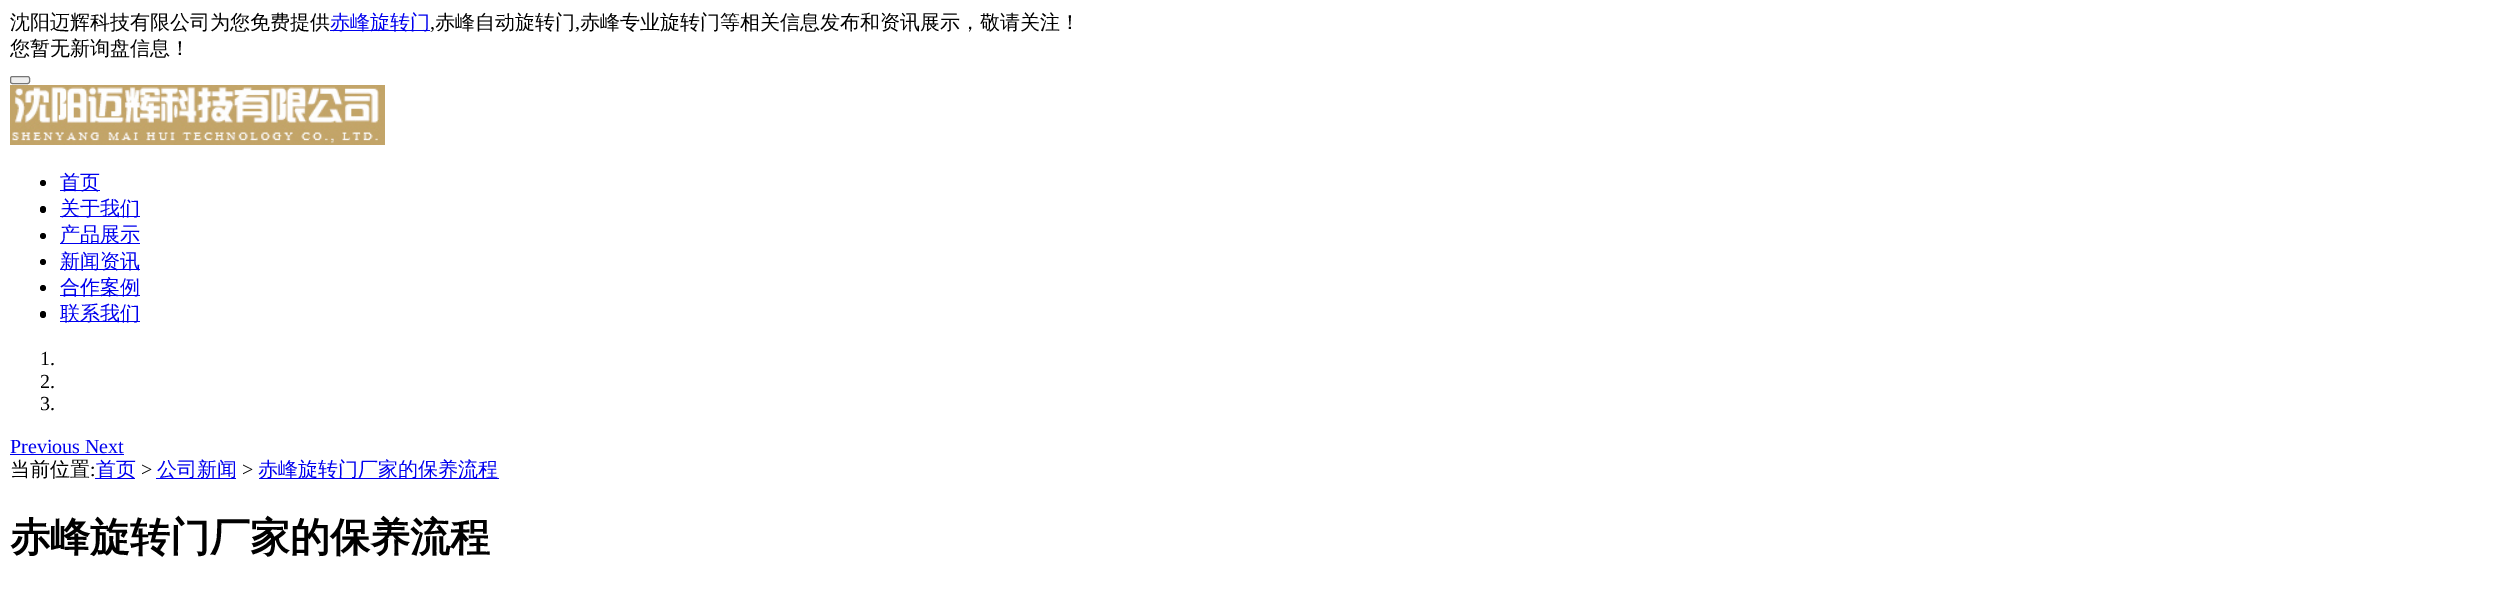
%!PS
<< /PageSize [2499 589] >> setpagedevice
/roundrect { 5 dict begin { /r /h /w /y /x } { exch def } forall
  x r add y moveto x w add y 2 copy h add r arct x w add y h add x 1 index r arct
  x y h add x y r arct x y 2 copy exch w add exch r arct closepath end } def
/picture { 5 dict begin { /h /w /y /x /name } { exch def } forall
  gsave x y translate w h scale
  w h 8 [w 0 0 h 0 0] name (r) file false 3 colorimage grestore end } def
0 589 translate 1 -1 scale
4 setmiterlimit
1 setgray
0 0 2499 589 rectfill
/WenQuanYiZenHei-Medium [20 0 0 -20 0 0] selectfont
0 setgray
10 29 moveto (沈阳迈辉科技有限公司为您免费提供) show
0 0 0.933 setrgbcolor
330 30 100 1 rectfill
330 29 moveto (赤峰旋转门) show
/LiberationSerif-Regular [20 0 0 -20 0 0] selectfont
0 setgray
430 29 moveto (,) show
/WenQuanYiZenHei-Medium [20 0 0 -20 0 0] selectfont
435 29 moveto (赤峰自动旋转门) show
/LiberationSerif-Regular [20 0 0 -20 0 0] selectfont
575 29 moveto (,) show
/WenQuanYiZenHei-Medium [20 0 0 -20 0 0] selectfont
580 29 moveto (赤峰专业旋转门等相关信息发布和资讯展示，敬请关注！) show
10 55 moveto (您暂无新询盘信息！) show
0.937 setgray
10.5 76.5 19 7 2 roundrect gsave fill grestore
0.463 setgray
stroke
(img1.rgb) 10 85 375 60 picture
0 setgray
newpath 43 183 3 0 360 arc closepath fill
0 0 0.933 setrgbcolor
60 190 40 1 rectfill
60 189 moveto (首页) show
0 setgray
40 206 6 7 3 roundrect fill
0 0 0.933 setrgbcolor
60 216 80 1 rectfill
60 215 moveto (关于我们) show
0 setgray
newpath 43 236 3 0 360 arc closepath fill
0 0 0.933 setrgbcolor
60 243 80 1 rectfill
60 241 moveto (产品展示) show
0 setgray
newpath 43 262 3 0 360 arc closepath fill
0 0 0.933 setrgbcolor
60 269 80 1 rectfill
60 268 moveto (新闻资讯) show
0 setgray
newpath 43 288 3 0 360 arc closepath fill
0 0 0.933 setrgbcolor
60 295 80 1 rectfill
60 294 moveto (合作案例) show
0 setgray
40 311 6 7 3 roundrect fill
0 0 0.933 setrgbcolor
60 321 80 1 rectfill
60 320 moveto (联系我们) show
/LiberationSerif-Regular [20 0 0 -20 0 0] selectfont
0 setgray
40 365 moveto (1.) show
40 388 moveto (2.) show
40 410 moveto (3.) show
0 0 0.933 setrgbcolor
10 453 moveto (Previous Next) show
10 454 114 1 rectfill
/WenQuanYiZenHei-Medium [20 0 0 -20 0 0] selectfont
0 setgray
10 476 moveto (当前位置) show
/LiberationSerif-Regular [20 0 0 -20 0 0] selectfont
90 476 moveto (:) show
0 0 0.933 setrgbcolor
95 478 40 1 rectfill
/WenQuanYiZenHei-Medium [20 0 0 -20 0 0] selectfont
96 476 moveto (首页) show
/LiberationSerif-Regular [20 0 0 -20 0 0] selectfont
0 setgray
141 476 moveto (>) show
0 0 0.933 setrgbcolor
156 478 80 1 rectfill
/WenQuanYiZenHei-Medium [20 0 0 -20 0 0] selectfont
157 476 moveto (公司新闻) show
/LiberationSerif-Regular [20 0 0 -20 0 0] selectfont
0 setgray
242 476 moveto (>) show
0 0 0.933 setrgbcolor
259 478 240 1 rectfill
/WenQuanYiZenHei-Medium [20 0 0 -20 0 0] selectfont
258 476 moveto (赤峰旋转门厂家的保养流程) show
/WenQuanYiZenHei-Bold [40 0 0 -40 0 0] selectfont
0 setgray
10 551 moveto (赤峰旋转门厂家的保养流程) show
showpage
